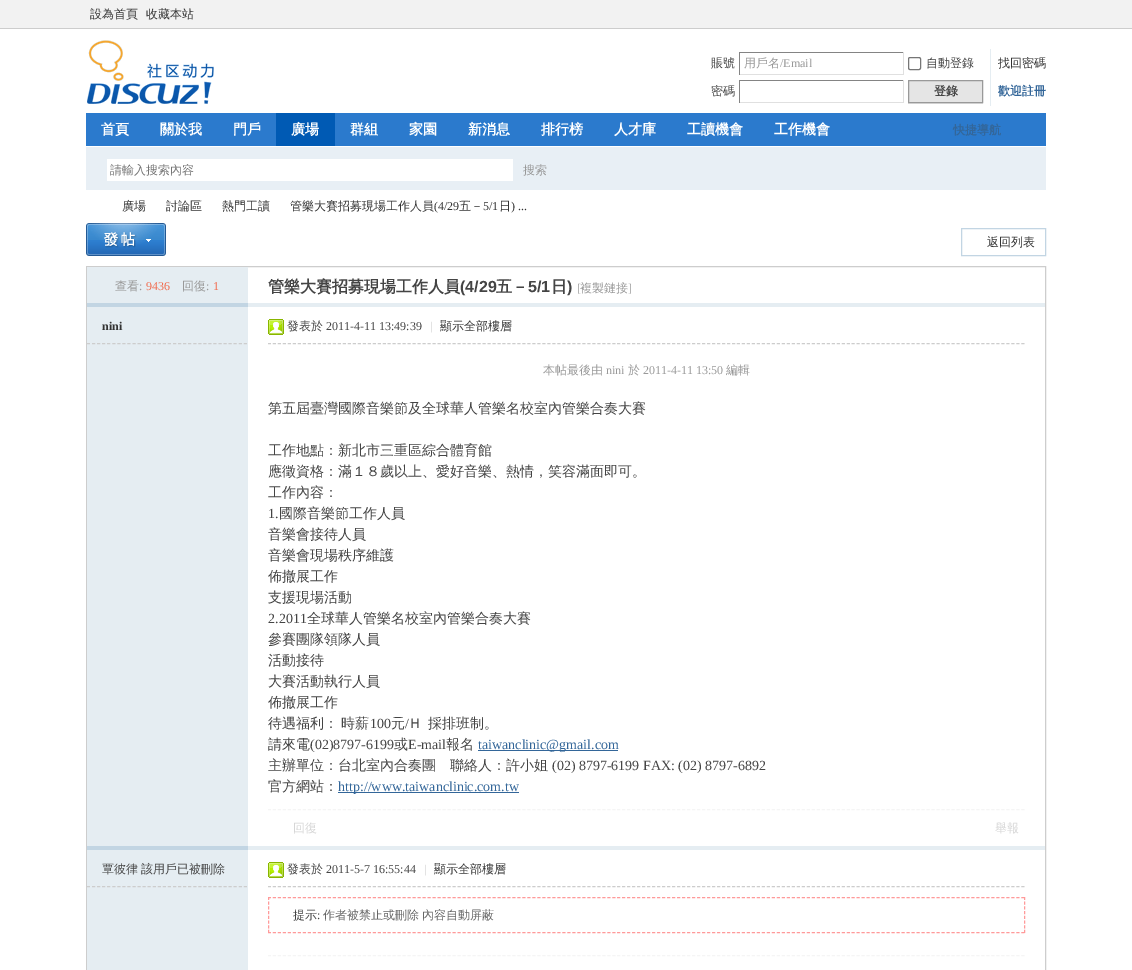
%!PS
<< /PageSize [1132 970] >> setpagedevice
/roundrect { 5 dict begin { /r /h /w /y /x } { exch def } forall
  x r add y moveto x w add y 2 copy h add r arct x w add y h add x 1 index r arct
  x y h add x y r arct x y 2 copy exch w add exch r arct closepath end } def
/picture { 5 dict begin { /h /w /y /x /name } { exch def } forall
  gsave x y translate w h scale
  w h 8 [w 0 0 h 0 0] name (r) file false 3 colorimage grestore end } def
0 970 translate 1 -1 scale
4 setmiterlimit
1 setgray
0 0 1132 970 rectfill
0.949 setgray
0 0 1132 28 rectfill
0.804 setgray
0 28 1132 1 rectfill
/WenQuanYiZenHei-Medium [12 0 0 -12 0 0] selectfont
0.2 setgray
90 18 moveto (設為首頁) show
146 18 moveto (收藏本站) show
(img1.rgb) 87 40 127 64 picture
0.267 setgray
711 67 moveto (賬號) show
0.518 setgray
739 52 165 1 rectfill
0.878 setgray
903 52 1 23 rectfill
739 74 165 1 rectfill
0.518 setgray
739 52 1 23 rectfill
0.6 setgray
744 67 moveto (用戶名) show
/LiberationSerif-Regular [12 0 0 -12 0 0] selectfont
780 67 moveto (/Email) show
0.463 setgray
908.5 57.5 12 12 1.5 roundrect stroke
/WenQuanYiZenHei-Medium [12 0 0 -12 0 0] selectfont
0.267 setgray
926 67 moveto (自動登錄) show
0.2 setgray
998 67 moveto (找回密碼) show
0.267 setgray
711 95 moveto (密碼) show
0.518 setgray
739 80 165 1 rectfill
0.878 setgray
903 80 1 23 rectfill
739 102 165 1 rectfill
0.518 setgray
739 80 1 23 rectfill
0.898 0.929 0.949 setrgbcolor
990 49 1 57 rectfill
0.898 setgray
908 103 75 1 rectfill
newpath 908.5 80.5 moveto 982.5 80.5 lineto 982.5 102.5 lineto 908.5 102.5 lineto closepath gsave fill grestore
0.6 setgray
stroke
/WenQuanYiZenHei-Bold [12 0 0 -12 0 0] selectfont
0.267 setgray
934 95 moveto (登錄) show
0.2 0.4 0.6 setrgbcolor
998 95 moveto (歡迎註冊) show
0.169 0.478 0.804 setrgbcolor
86 113 960 33 rectfill
/WenQuanYiZenHei-Bold [14 0 0 -14 0 0] selectfont
1 setgray
101 134 moveto (首頁) show
160 134 moveto (關於我) show
233 134 moveto (門戶) show
0 0.353 0.706 setrgbcolor
276 113 59 33 rectfill
1 setgray
291 134 moveto (廣場) show
350 134 moveto (群組) show
409 134 moveto (家園) show
468 134 moveto (新消息) show
541 134 moveto (排行榜) show
614 134 moveto (人才庫) show
687 134 moveto (工讀機會) show
774 134 moveto (工作機會) show
/WenQuanYiZenHei-Bold [12 0 0 -12 0 0] selectfont
0.2 0.4 0.6 setrgbcolor
953 134 moveto (快捷導航) show
0.91 0.937 0.961 setrgbcolor
86 147 960 43 rectfill
1 setgray
107 159 406 22 rectfill
/WenQuanYiZenHei-Medium [12 0 0 -12 0 0] selectfont
0.459 setgray
110 174 moveto (請輸入搜索內容) show
0.6 setgray
523 174 moveto (搜索) show
0.2 setgray
122 210 moveto (廣場) show
166 210 moveto (討論區) show
222 210 moveto (熱門工讀) show
290 210 moveto (管樂大賽招募現場工作人員) show
/LiberationSerif-Regular [12 0 0 -12 0 0] selectfont
434 210 moveto (\(4/29) show
/WenQuanYiZenHei-Medium [12 0 0 -12 0 0] selectfont
459 210 moveto (五－) show
/LiberationSerif-Regular [12 0 0 -12 0 0] selectfont
483 210 moveto (5/1) show
/WenQuanYiZenHei-Medium [12 0 0 -12 0 0] selectfont
499 210 moveto (日) show
/LiberationSerif-Regular [12 0 0 -12 0 0] selectfont
511 210 moveto (\) ...) show
(img2.rgb) 86 223 80 33 picture
0.761 0.835 0.89 setrgbcolor
961.5 228.5 84 27 rectstroke
/WenQuanYiZenHei-Medium [12 0 0 -12 0 0] selectfont
0.2 setgray
987 246 moveto (返回列表) show
0.804 setgray
86.5 266.5 959 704 rectstroke
0.898 0.929 0.949 setrgbcolor
87 267 161 36 rectfill
0.6 setgray
115 290 moveto (查看) show
/LiberationSerif-Regular [12 0 0 -12 0 0] selectfont
139 290 moveto (:) show
0.949 0.424 0.31 setrgbcolor
146 290 moveto (9436) show
/WenQuanYiZenHei-Medium [12 0 0 -12 0 0] selectfont
0.6 setgray
182 290 moveto (回復) show
/LiberationSerif-Regular [12 0 0 -12 0 0] selectfont
206 290 moveto (:) show
0.949 0.424 0.31 setrgbcolor
213 290 moveto (1) show
/WenQuanYiZenHei-Bold [16 0 0 -16 0 0] selectfont
0.267 setgray
268 292 moveto (管樂大賽招募現場工作人員) show
/LiberationSans-Bold [16 0 0 -16 0 0] selectfont
460 292 moveto (\(4/29) show
/WenQuanYiZenHei-Bold [16 0 0 -16 0 0] selectfont
496 292 moveto (五－) show
/LiberationSans-Bold [16 0 0 -16 0 0] selectfont
528 292 moveto (5/1) show
/WenQuanYiZenHei-Bold [16 0 0 -16 0 0] selectfont
551 292 moveto (日) show
/LiberationSans-Bold [16 0 0 -16 0 0] selectfont
567 292 moveto (\)) show
/LiberationSerif-Regular [12 0 0 -12 0 0] selectfont
0.6 setgray
577 292 moveto ([) show
/WenQuanYiZenHei-Medium [12 0 0 -12 0 0] selectfont
580 292 moveto (複製鏈接) show
/LiberationSerif-Regular [12 0 0 -12 0 0] selectfont
628 292 moveto (]) show
0.761 0.835 0.89 setrgbcolor
87 303 161 4 rectfill
0.898 0.929 0.949 setrgbcolor
248 303 797 4 rectfill
87 307 161 539 rectfill
0.804 setgray
[3 2.06] 0 setdash
newpath 87 343.5 moveto 247 343.5 lineto stroke
/LiberationSerif-Bold [12 0 0 -12 0 0] selectfont
0.2 setgray
102 330 moveto (nini) show
0.804 setgray
[3 1.99] 0 setdash
newpath 268 343.5 moveto 1025 343.5 lineto stroke
(img3.rgb) 268 319 16 16 picture
/WenQuanYiZenHei-Medium [12 0 0 -12 0 0] selectfont
0.267 setgray
287 330 moveto (發表於) show
/LiberationSerif-Regular [12 0 0 -12 0 0] selectfont
326 330 moveto (2011-4-11 13:49:39) show
0.8 setgray
430 330 moveto (|) show
/WenQuanYiZenHei-Medium [12 0 0 -12 0 0] selectfont
0.2 setgray
440 330 moveto (顯示全部樓層) show
0.6 setgray
543 374 moveto (本帖最後由) show
/LiberationSerif-Regular [12 0 0 -12 0 0] selectfont
606 374 moveto (nini) show
/WenQuanYiZenHei-Medium [12 0 0 -12 0 0] selectfont
628 374 moveto (於) show
/LiberationSerif-Regular [12 0 0 -12 0 0] selectfont
643 374 moveto (2011-4-11 13:50) show
/WenQuanYiZenHei-Medium [12 0 0 -12 0 0] selectfont
726 374 moveto (編輯) show
/WenQuanYiZenHei-Medium [14 0 0 -14 0 0] selectfont
0.267 setgray
268 413 moveto (第五屆臺灣國際音樂節及全球華人管樂名校室內管樂合奏大賽) show
268 455 moveto (工作地點：新北市三重區綜合體育館) show
268 476 moveto (應徵資格：滿１８歲以上、愛好音樂、熱情，笑容滿面即可。) show
268 497 moveto (工作內容：) show
/LiberationSerif-Regular [14 0 0 -14 0 0] selectfont
268 518 moveto (1.) show
/WenQuanYiZenHei-Medium [14 0 0 -14 0 0] selectfont
279 518 moveto (國際音樂節工作人員) show
268 539 moveto (音樂會接待人員) show
268 560 moveto (音樂會現場秩序維護) show
268 581 moveto (佈撤展工作) show
268 602 moveto (支援現場活動) show
/LiberationSerif-Regular [14 0 0 -14 0 0] selectfont
268 623 moveto (2.2011) show
/WenQuanYiZenHei-Medium [14 0 0 -14 0 0] selectfont
307 623 moveto (全球華人管樂名校室內管樂合奏大賽) show
268 644 moveto (參賽團隊領隊人員) show
268 665 moveto (活動接待) show
268 686 moveto (大賽活動執行人員) show
268 707 moveto (佈撤展工作) show
268 728 moveto -1 0 32 (待遇福利： 時薪) widthshow
/LiberationSerif-Regular [14 0 0 -14 0 0] selectfont
370 728 moveto (100) show
/WenQuanYiZenHei-Medium [14 0 0 -14 0 0] selectfont
391 728 moveto (元) show
/LiberationSerif-Regular [14 0 0 -14 0 0] selectfont
405 728 moveto (/) show
/WenQuanYiZenHei-Medium [14 0 0 -14 0 0] selectfont
408 728 moveto (Ｈ) show
428 728 moveto (採排班制。) show
268 749 moveto (請來電) show
/LiberationSerif-Regular [14 0 0 -14 0 0] selectfont
310 749 moveto (\(02\)8797-6199) show
/WenQuanYiZenHei-Medium [14 0 0 -14 0 0] selectfont
394 749 moveto (或) show
/LiberationSerif-Regular [14 0 0 -14 0 0] selectfont
408 749 moveto (E-mail) show
/WenQuanYiZenHei-Medium [14 0 0 -14 0 0] selectfont
446 749 moveto (報名) show
0.2 0.4 0.6 setrgbcolor
478 750 140 1 rectfill
/LiberationSerif-Regular [14 0 0 -14 0 0] selectfont
478 749 moveto (taiwanclinic@gmail.com) show
/WenQuanYiZenHei-Medium [14 0 0 -14 0 0] selectfont
0.267 setgray
268 770 moveto (主辦單位：台北室內合奏團　聯絡人：許小姐) show
/LiberationSerif-Regular [14 0 0 -14 0 0] selectfont
552 770 moveto (\(02\) 8797-6199 FAX: \(02\) 8797-6892) show
/WenQuanYiZenHei-Medium [14 0 0 -14 0 0] selectfont
268 791 moveto (官方網站：) show
0.2 0.4 0.6 setrgbcolor
338 792 181 1 rectfill
/LiberationSerif-Regular [14 0 0 -14 0 0] selectfont
338 791 moveto (http://www.taiwanclinic.com.tw) show
0.961 setgray
newpath 268 809.5 moveto 1025 809.5 lineto stroke
/WenQuanYiZenHei-Medium [12 0 0 -12 0 0] selectfont
0.839 setgray
293 832 moveto (回復) show
995 832 moveto (舉報) show
0.761 0.835 0.89 setrgbcolor
87 846 161 4 rectfill
0.898 0.929 0.949 setrgbcolor
248 846 797 4 rectfill
87 850 161 120 rectfill
0.804 setgray
[3 2.06] 0 setdash
newpath 87 886.5 moveto 247 886.5 lineto stroke
0.267 setgray
102 873 moveto (覃彼律) show
141 873 moveto (該用戶已被刪除) show
0.804 setgray
[3 1.99] 0 setdash
newpath 268 886.5 moveto 1025 886.5 lineto stroke
(img3.rgb) 268 862 16 16 picture
0.267 setgray
287 873 moveto (發表於) show
/LiberationSerif-Regular [12 0 0 -12 0 0] selectfont
326 873 moveto (2011-5-7 16:55:44) show
0.8 setgray
424 873 moveto (|) show
/WenQuanYiZenHei-Medium [12 0 0 -12 0 0] selectfont
0.2 setgray
434 873 moveto (顯示全部樓層) show
1 0.604 0.604 setrgbcolor
newpath 268 897.5 moveto 1025 897.5 lineto stroke
[3 1.71] 0 setdash
newpath 1024.5 897 moveto 1024.5 933 lineto stroke
[3 1.99] 0 setdash
newpath 268 932.5 moveto 1025 932.5 lineto stroke
[3 1.71] 0 setdash
newpath 268.5 897 moveto 268.5 933 lineto stroke
0.267 setgray
293 919 moveto (提示) show
/LiberationSerif-Regular [12 0 0 -12 0 0] selectfont
317 919 moveto (:) show
/WenQuanYiZenHei-Medium [12 0 0 -12 0 0] selectfont
0.4 setgray
323 919 moveto -1 0 32 (作者被禁止或刪除 內容自動屏蔽) widthshow
0.961 setgray
[3 1.99] 0 setdash
newpath 268 955.5 moveto 1025 955.5 lineto stroke
showpage
